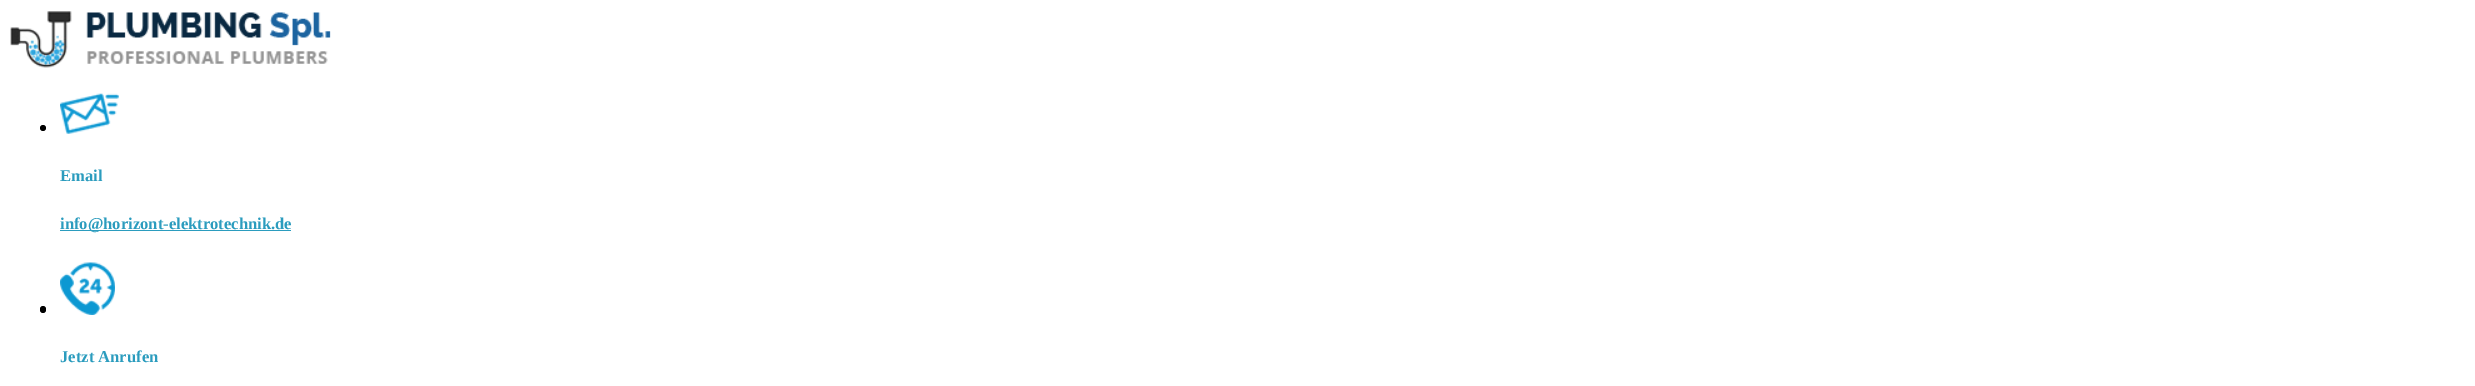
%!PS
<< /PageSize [2475 386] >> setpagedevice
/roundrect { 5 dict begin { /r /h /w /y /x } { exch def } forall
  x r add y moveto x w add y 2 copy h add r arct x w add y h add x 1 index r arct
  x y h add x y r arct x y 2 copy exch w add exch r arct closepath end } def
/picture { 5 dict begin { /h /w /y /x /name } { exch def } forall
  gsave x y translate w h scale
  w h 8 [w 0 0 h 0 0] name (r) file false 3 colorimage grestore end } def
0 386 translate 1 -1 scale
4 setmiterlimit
1 setgray
0 0 2475 386 rectfill
(img1.rgb) 10 11 321 57 picture
0 setgray
newpath 43 128 3 0 360 arc closepath fill
(img2.rgb) 60 93 59 41 picture
/LiberationSerif-Bold [16.6 0 0 -16.6 0 0] selectfont
0.169 0.612 0.745 setrgbcolor
60 181 moveto (Email) show
60 230 231 1 rectfill
60 229 moveto (info@horizont-elektrotechnik.de) show
0 setgray
40 306 6 7 3 roundrect fill
(img3.rgb) 60 262 55 53 picture
0.169 0.612 0.745 setrgbcolor
60 362 moveto (Jetzt Anrufen) show
showpage
